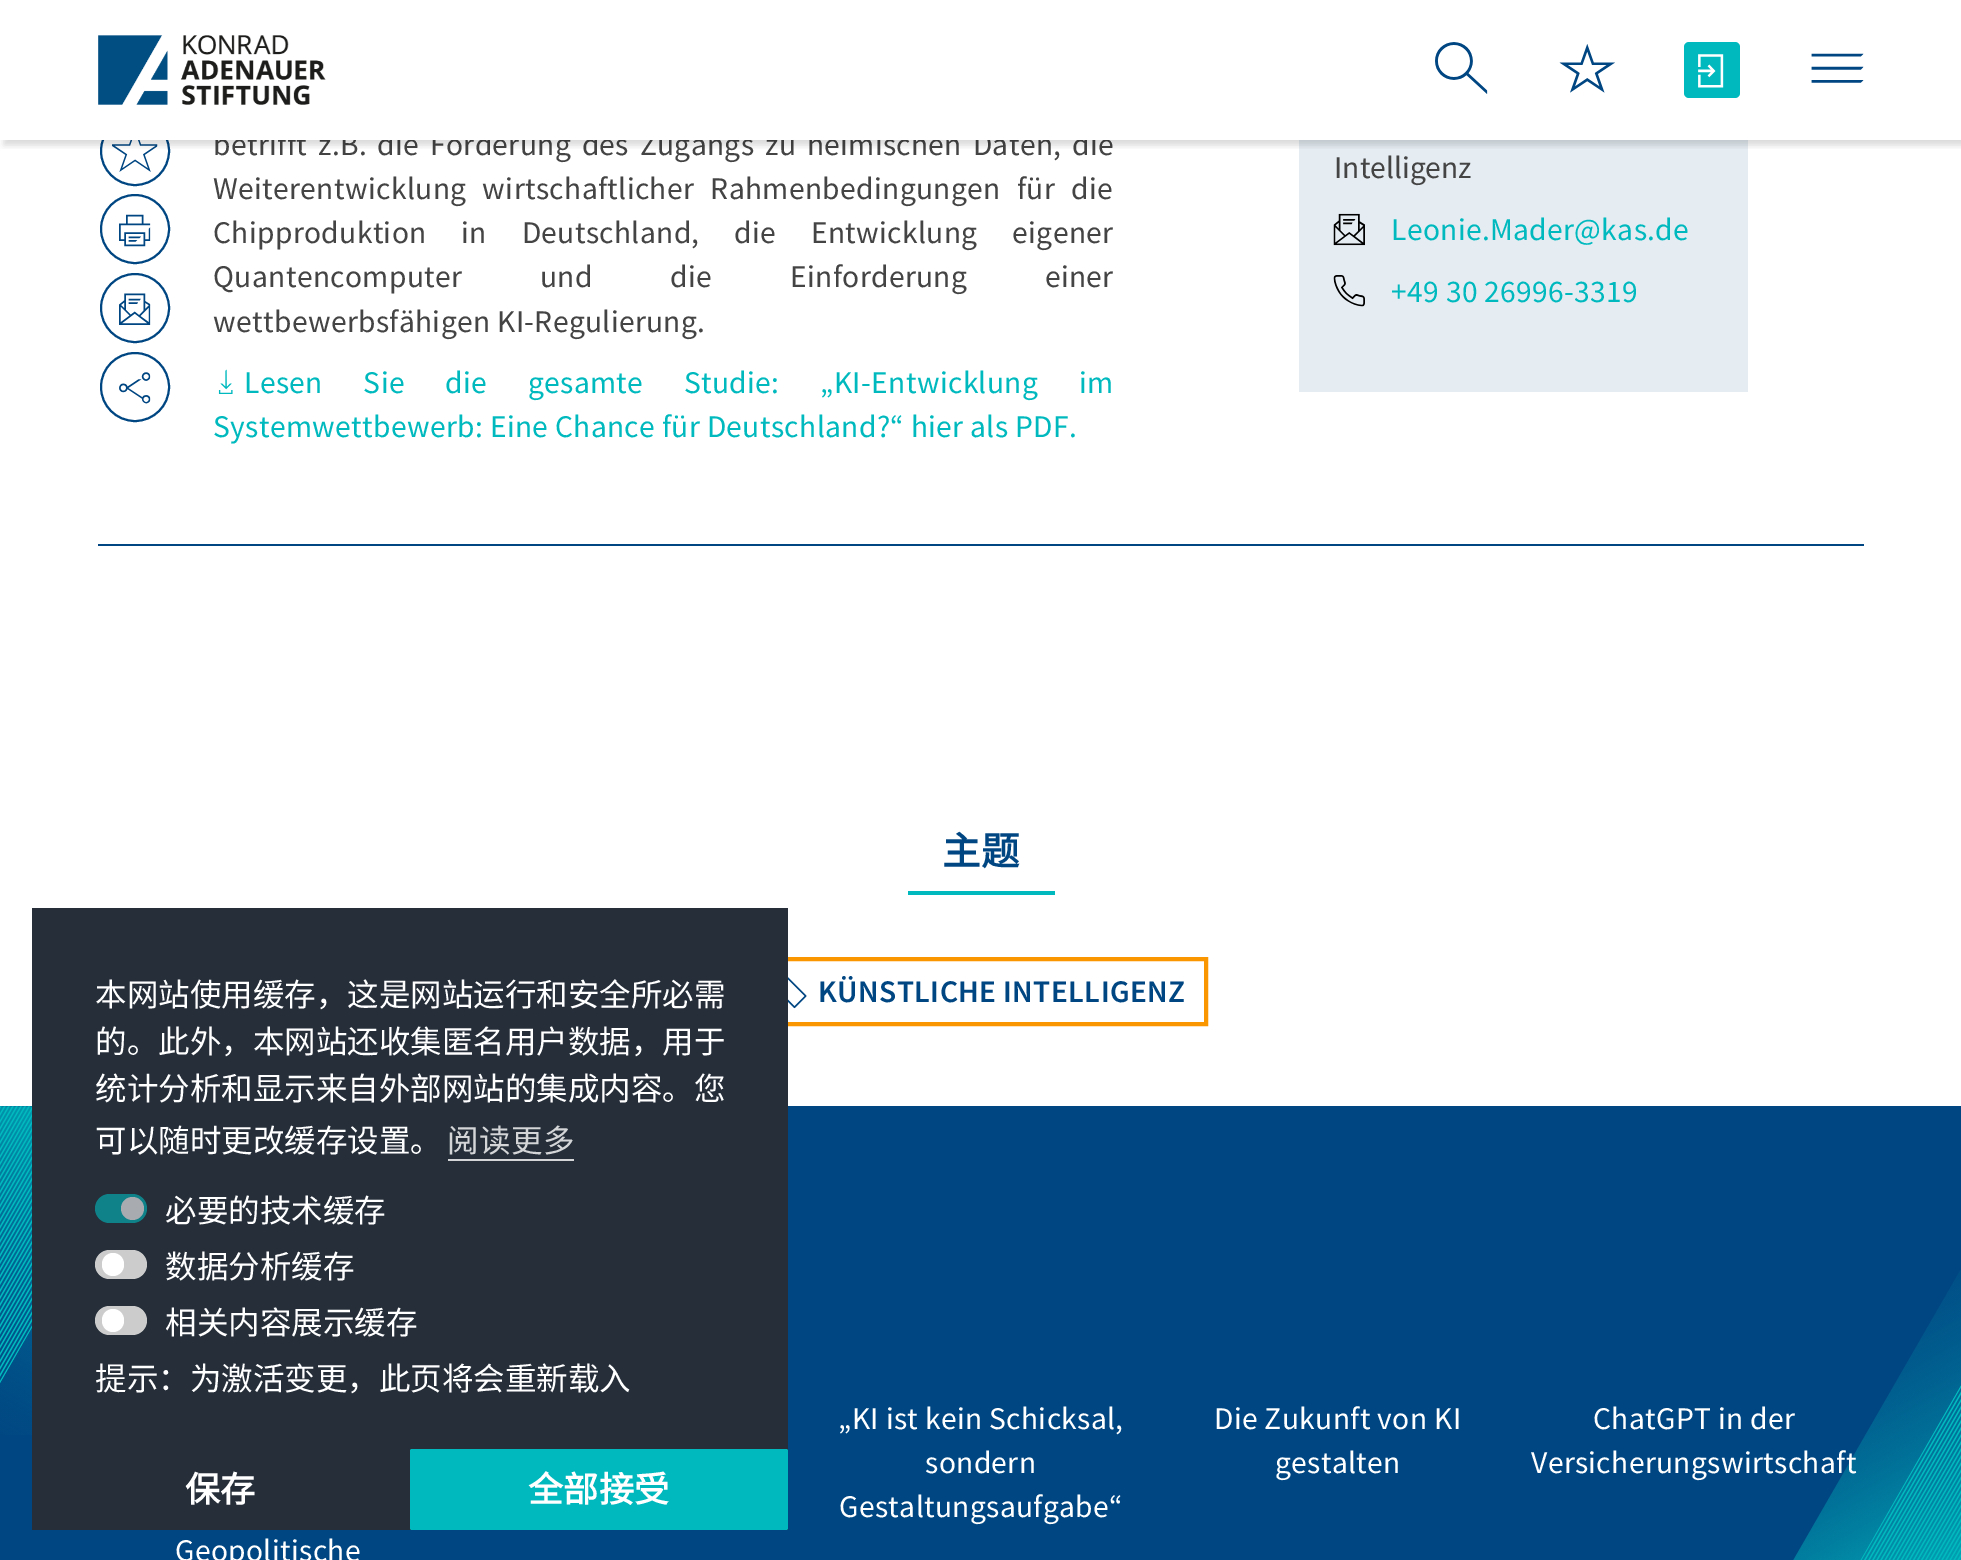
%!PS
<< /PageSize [1961 1560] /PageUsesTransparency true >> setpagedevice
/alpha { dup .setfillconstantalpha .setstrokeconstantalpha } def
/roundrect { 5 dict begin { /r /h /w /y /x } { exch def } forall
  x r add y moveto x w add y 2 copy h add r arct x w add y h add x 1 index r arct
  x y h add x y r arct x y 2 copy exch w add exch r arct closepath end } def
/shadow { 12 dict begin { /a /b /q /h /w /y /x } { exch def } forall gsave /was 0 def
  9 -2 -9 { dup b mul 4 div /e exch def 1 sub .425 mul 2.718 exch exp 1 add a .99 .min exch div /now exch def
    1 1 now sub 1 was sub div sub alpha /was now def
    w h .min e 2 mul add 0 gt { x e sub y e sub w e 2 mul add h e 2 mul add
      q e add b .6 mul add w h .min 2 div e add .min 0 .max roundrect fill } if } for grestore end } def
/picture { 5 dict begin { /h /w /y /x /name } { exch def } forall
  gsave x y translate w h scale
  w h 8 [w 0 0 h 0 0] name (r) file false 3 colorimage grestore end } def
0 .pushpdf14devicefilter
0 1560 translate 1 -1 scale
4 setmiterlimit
1 setgray
0 0 1961 1560 rectfill
0 0.275 0.51 setrgbcolor
2 setlinewidth
newpath 135 151 34 0 360 arc closepath stroke
/SourceSansPro-Regular [31.5 0 0 -31.5 0 0] selectfont
0.267 setgray
213 155 moveto 4 0 32 0.35 0 (betrifft z.B. die Förderung des Zugangs zu heimischen Daten, die) awidthshow
1 setgray
101 116 1008 24 rectfill
(img6.rgb) 112 140 46 32 picture
0.898 0.925 0.949 setrgbcolor
1299 140 449 252 rectfill
gsave
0 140 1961 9 rectclip
0 setgray
4 5 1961 140 0 3.5 0.15 shadow
grestore
(img1.rgb) 98 35 228 70 picture
(img2.rgb) 1435 42 53 52 picture
(img3.rgb) 1559 44 56 49 picture
0 0.725 0.745 setrgbcolor
1684 42 56 56 5 roundrect fill
(img4.rgb) 1698 54 26 34 picture
(img5.rgb) 1811 53 53 30 picture
0 0.275 0.51 setrgbcolor
98 544 1766 2 rectfill
newpath 135 229 34 0 360 arc closepath stroke
(img7.rgb) 119 214 32 33 picture
newpath 135 308 34 0 360 arc closepath stroke
(img8.rgb) 119 293 32 32 picture
newpath 135 387 34 0 360 arc closepath stroke
(img9.rgb) 119 372 32 32 picture
0.267 setgray
213 199 moveto 9.5 0 32 0.35 0 (Weiterentwicklung wirtschaftlicher Rahmenbedingungen für die) awidthshow
213 243 moveto 28 0 32 0.35 0 (Chipproduktion in Deutschland, die Entwicklung eigener) awidthshow
213 287 moveto 71 0 32 0.35 0 (Quantencomputer und die Einforderung einer) awidthshow
213 332 moveto 0.35 0 (wettbewerbsfähigen KI-Regulierung.) ashow
(img10.rgb) 218 369 15 25 picture
0 0.725 0.745 setrgbcolor
244 393 moveto 34 0 32 0.35 0 (Lesen Sie die gesamte Studie: „KI-Entwicklung im) awidthshow
213 437 moveto 0.35 0 (Systemwettbewerb: Eine Chance für Deutschland?“ hier als PDF.) ashow
0.267 setgray
1334 178 moveto (Intelligenz) show
(img11.rgb) 1333 213 32 33 picture
0 0.725 0.745 setrgbcolor
1391 240 moveto 0.35 0 (Leonie.Mader@kas.de) ashow
(img12.rgb) 1333 275 32 32 picture
1391 302 moveto 0.35 0 (+49 30 26996-3319) ashow
/NotoSansCJKSC-Bold [38.5 0 0 -38.5 0 0] selectfont
0 0.275 0.51 setrgbcolor
942 865 moveto (主题) show
0 0.725 0.745 setrgbcolor
908 891 147 4 rectfill
0.98 0.588 0 setrgbcolor
4 setlinewidth
756 959 450 65 rectstroke
(img13.rgb) 788 977 19 32 picture
/SourceSansPro-SemiBold [31.5 0 0 -31.5 0 0] selectfont
0 0.275 0.51 setrgbcolor
818 1002 moveto 0.35 0 (KÜNSTLICHE INTELLIGENZ) ashow
0 1106 1961 454 rectfill
(img14.rgb) 0 1106 32 329 picture
/SourceSansPro-Regular [31.5 0 0 -31.5 0 0] selectfont
1 setgray
838 1429 moveto 0.35 0 („KI ist kein Schicksal,) ashow
925 1473 moveto 0.35 0 (sondern) ashow
839 1517 moveto 0.35 0 (Gestaltungsaufgabe“) ashow
1214 1429 moveto 0.35 0 (Die Zukunft von KI) ashow
1275 1473 moveto 0.35 0 (gestalten) ashow
(img15.rgb) 1793 1270 168 290 picture
1593 1429 moveto 0.35 0 (ChatGPT in der) ashow
1531 1473 moveto 0.35 0 (Versicherungswirtschaft) ashow
175 1561 moveto 0.35 0 (Geopolitische) ashow
0.145 0.18 0.224 setrgbcolor
32 908 756 622 rectfill
/NotoSansCJKSC-Regular [31.5 0 0 -31.5 0 0] selectfont
1 setgray
95 1006 moveto (本网站使用缓存，这是网站运行和安全所必需) show
95 1053 moveto (的。此外，本网站还收集匿名用户数据，用于) show
95 1100 moveto (统计分析和显示来自外部网站的集成内容。您) show
95 1152 moveto (可以随时更改缓存设置。) show
0.827 0.835 0.843 setrgbcolor
447 1152 moveto 0.35 0 (阅读更多) ashow
448 1159 126 2 rectfill
0.059 0.506 0.537 setrgbcolor
95 1194 52 29 14.5 roundrect fill
0.659 0.671 0.69 setrgbcolor
newpath 132.5 1208.5 11.5 0 360 arc closepath fill
1 setgray
165 1222 moveto (必要的技术缓存) show
0.8 setgray
95 1250 52 29 14.5 roundrect fill
1 setgray
102 1253 22 23 11 roundrect fill
165 1278 moveto (数据分析缓存) show
0.8 setgray
95 1306 52 29 14.5 roundrect fill
1 setgray
102 1309 22 23 11 roundrect fill
165 1334 moveto (相关内容展示缓存) show
95 1390 moveto (提示：为激活变更，此页将会重新载入) show
/NotoSansCJKSC-Bold [35 0 0 -35 0 0] selectfont
185 1502 moveto 0.35 0 (保存) ashow
0 0.725 0.745 setrgbcolor
410 1449 378 81 2 roundrect fill
1 setgray
528 1502 moveto 0.35 0 (全部接受) ashow
.poppdf14devicefilter showpage
